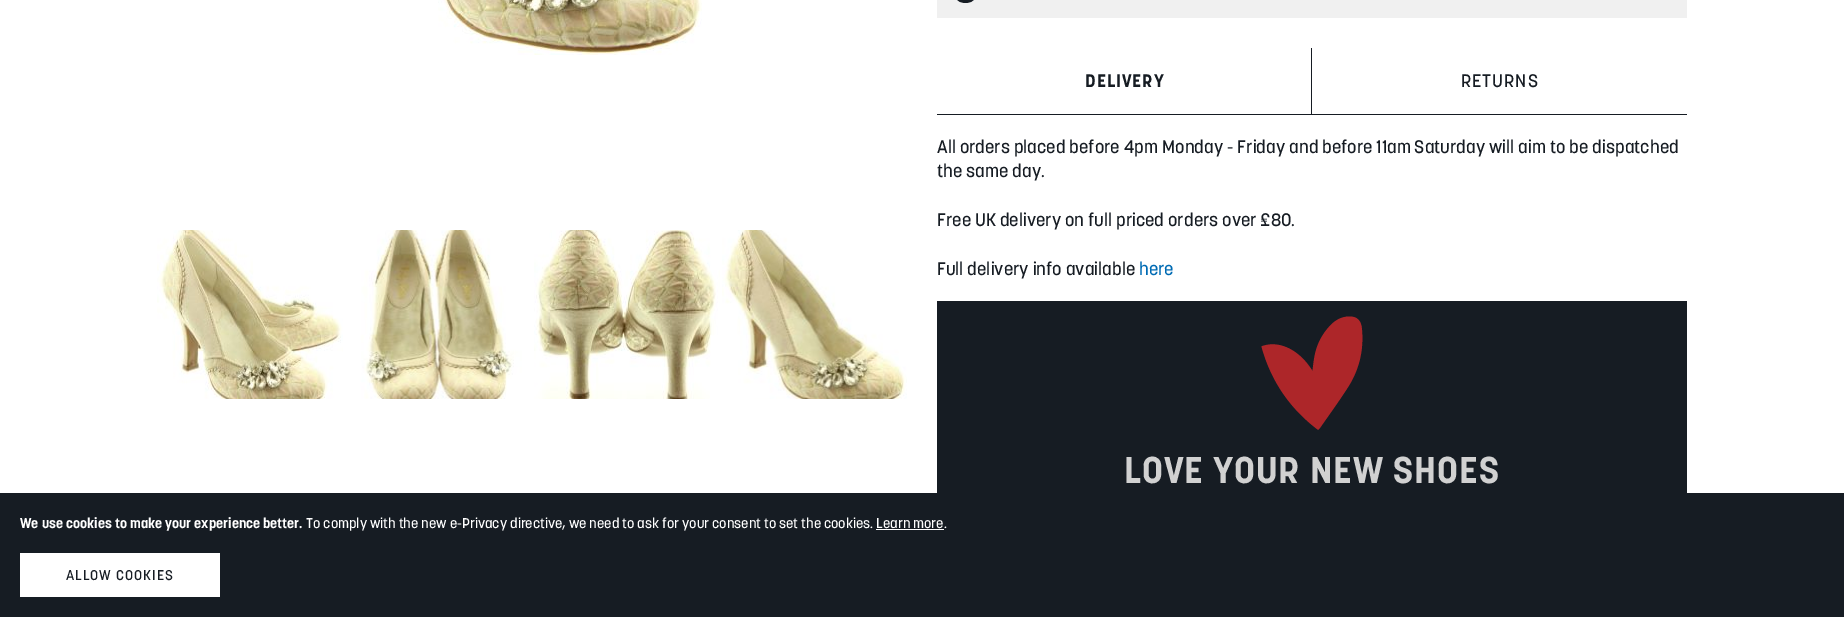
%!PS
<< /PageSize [1844 617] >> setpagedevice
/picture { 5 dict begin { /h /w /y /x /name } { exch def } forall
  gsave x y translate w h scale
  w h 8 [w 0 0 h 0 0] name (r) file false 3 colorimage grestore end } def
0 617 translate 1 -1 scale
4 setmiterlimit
1 setgray
0 0 1844 617 rectfill
(img1.rgb) 438 0 264 55 picture
(img2.rgb) 157 230 186 169 picture
(img3.rgb) 345 230 187 169 picture
(img4.rgb) 534 230 186 169 picture
(img5.rgb) 722 230 185 169 picture
0.941 setgray
937 0 750 18 rectfill
(img6.rgb) 957 0 17 3 picture
0.086 0.11 0.137 setrgbcolor
937 114 750 1 rectfill
/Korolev-Bold [18 0 0 -18 0 0] selectfont
1085 87 moveto 1 0 (DELIVERY) ashow
1311 48 1 66 rectfill
/Korolev-Medium [18 0 0 -18 0 0] selectfont
1461 87 moveto 1 0 (RETURNS) ashow
937 153 moveto (All orders placed before 4pm Monday - Friday and before 11am Saturday will aim to be dispatched) show
937 177 moveto (the same day.) show
937 226 moveto (Free UK delivery on full priced orders over £80.) show
937 275 moveto (Full delivery info available) show
0 0.42 0.706 setrgbcolor
1139 275 moveto (here) show
0.086 0.11 0.137 setrgbcolor
937 301 750 192 rectfill
(img7.rgb) 1261 316 102 114 picture
/Korolev-Bold [37 0 0 -37 0 0] selectfont
0.82 setgray
1124 483 moveto 1 0 (LOVE YOUR NEW SHOES) ashow
0.086 0.11 0.137 setrgbcolor
0 493 1844 124 rectfill
/Korolev-Bold [14 0 0 -14 0 0] selectfont
1 setgray
20 528 moveto (We use cookies to make your experience better.) show
/Korolev-Medium [14 0 0 -14 0 0] selectfont
306 528 moveto (To comply with the new e-Privacy directive, we need to ask for your consent to set the cookies. Learn more.) show
876 529 68 1 rectfill
20 553 200 44 rectfill
0.086 0.11 0.137 setrgbcolor
66 580 moveto 1 0 (ALLOW COOKIES) ashow
showpage
